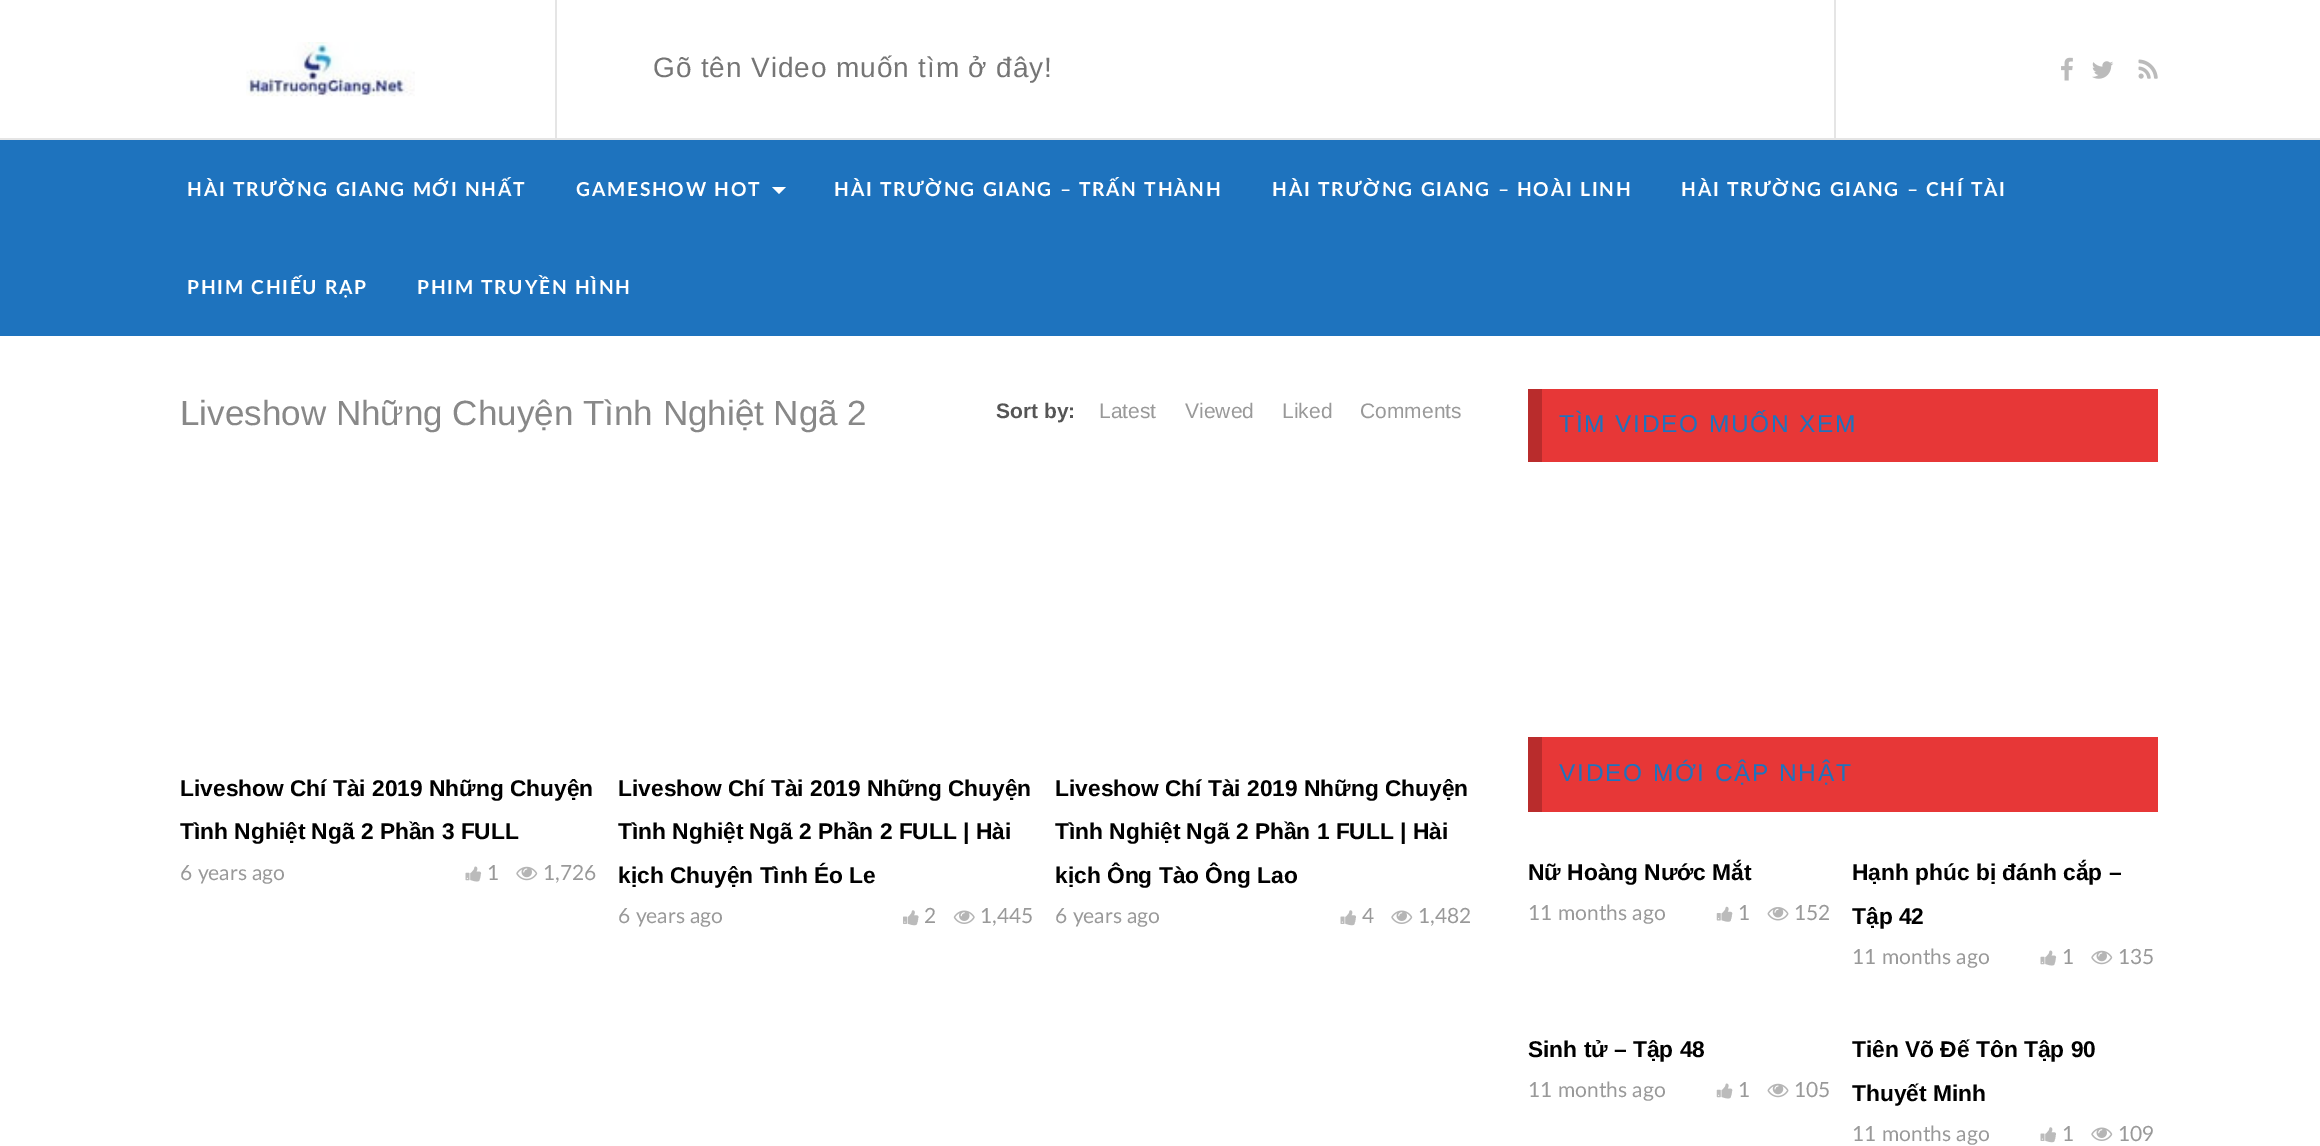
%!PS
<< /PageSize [2320 1146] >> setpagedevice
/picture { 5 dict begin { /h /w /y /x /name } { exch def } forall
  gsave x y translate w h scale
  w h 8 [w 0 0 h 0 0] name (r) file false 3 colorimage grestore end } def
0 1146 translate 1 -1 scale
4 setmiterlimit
1 setgray
0 0 2320 1146 rectfill
0.898 setgray
0 138 2320 2 rectfill
555 0 2 138 rectfill
(img1.rgb) 246 42 169 55 picture
/LiberationSans-Regular [28 0 0 -28 0 0] selectfont
0.459 setgray
653 77 moveto 0.9 0 (Gõ tên Video muốn tìm ở đây!) ashow
0.898 setgray
1834 0 2 138 rectfill
(img2.rgb) 2061 57 12 24 picture
(img3.rgb) 2092 61 22 18 picture
(img4.rgb) 2138 59 20 20 picture
0.118 0.451 0.745 setrgbcolor
0 140 2320 196 rectfill
/Lato-Bold [19.25 0 0 -19.25 0 0] selectfont
1 setgray
187 196 moveto 1.75 0 (HÀI TRƯỜNG GIANG MỚI NHẤT) ashow
576 196 moveto 1.75 0 (GAMESHOW HOT) ashow
newpath 772 187 moveto 786 187 lineto 779 194 lineto closepath fill
834 196 moveto 1.75 0 (HÀI TRƯỜNG GIANG – TRẤN THÀNH) ashow
1272 196 moveto 1.75 0 (HÀI TRƯỜNG GIANG – HOÀI LINH) ashow
1681 196 moveto 1.75 0 (HÀI TRƯỜNG GIANG – CHÍ TÀI) ashow
187 294 moveto 1.75 0 (PHIM CHIẾU RẠP) ashow
417 294 moveto 1.75 0 (PHIM TRUYỀN HÌNH) ashow
/LiberationSans-Regular [35 0 0 -35 0 0] selectfont
0.533 setgray
180 425 moveto (Liveshow Những Chuyện Tình Nghiệt Ngã 2) show
/LiberationSans-Bold [21 0 0 -21 0 0] selectfont
0.333 setgray
996 418 moveto (Sort by:) show
/LiberationSans-Regular [21 0 0 -21 0 0] selectfont
0.6 setgray
1099 418 moveto (Latest) show
1185 418 moveto (Viewed) show
1282 418 moveto (Liked) show
1360 418 moveto (Comments) show
/LiberationSans-Bold [22.75 0 0 -22.75 0 0] selectfont
0 setgray
180 796 moveto (Liveshow Chí Tài 2019 Những Chuyện) show
180 839 moveto (Tình Nghiệt Ngã 2 Phần 3 FULL) show
/Lato-Regular [21 0 0 -21 0 0] selectfont
0.6 setgray
180 880 moveto (6 years ago) show
(img5.rgb) 465 866 17 16 picture
487 880 moveto (1) show
(img6.rgb) 516 866 22 15 picture
543 880 moveto (1,726) show
/LiberationSans-Bold [22.75 0 0 -22.75 0 0] selectfont
0 setgray
618 796 moveto (Liveshow Chí Tài 2019 Những Chuyện) show
618 839 moveto (Tình Nghiệt Ngã 2 Phần 2 FULL | Hài) show
618 883 moveto (kịch Chuyện Tình Éo Le) show
/Lato-Regular [21 0 0 -21 0 0] selectfont
0.6 setgray
618 923 moveto (6 years ago) show
(img7.rgb) 903 910 16 16 picture
924 923 moveto (2) show
(img8.rgb) 953 910 22 14 picture
980 923 moveto (1,445) show
/LiberationSans-Bold [22.75 0 0 -22.75 0 0] selectfont
0 setgray
1055 796 moveto (Liveshow Chí Tài 2019 Những Chuyện) show
1055 839 moveto (Tình Nghiệt Ngã 2 Phần 1 FULL | Hài) show
1055 883 moveto (kịch Ông Tào Ông Lao) show
/Lato-Regular [21 0 0 -21 0 0] selectfont
0.6 setgray
1055 923 moveto (6 years ago) show
(img9.rgb) 1340 910 16 16 picture
1362 923 moveto (4) show
(img10.rgb) 1391 910 22 14 picture
1418 923 moveto (1,482) show
0.906 0.216 0.216 setrgbcolor
1542 389 616 73 rectfill
0.725 0.173 0.173 setrgbcolor
1528 389 14 73 rectfill
/LiberationSans-Regular [24.5 0 0 -24.5 0 0] selectfont
0.118 0.451 0.745 setrgbcolor
1559 432 moveto 1.75 0 (TÌM VIDEO MUỐN XEM) ashow
0.906 0.216 0.216 setrgbcolor
1542 737 616 75 rectfill
0.725 0.173 0.173 setrgbcolor
1528 737 14 75 rectfill
0.118 0.451 0.745 setrgbcolor
1559 781 moveto 1.75 0 (VIDEO MỚI CẬP NHẬT) ashow
/LiberationSans-Bold [22.75 0 0 -22.75 0 0] selectfont
0 setgray
1528 880 moveto (Nữ Hoàng Nước Mắt) show
/Lato-Regular [21 0 0 -21 0 0] selectfont
0.6 setgray
1528 920 moveto (11 months ago) show
(img11.rgb) 1716 906 17 16 picture
1738 920 moveto (1) show
(img12.rgb) 1767 907 22 14 picture
1794 920 moveto (152) show
/LiberationSans-Bold [22.75 0 0 -22.75 0 0] selectfont
0 setgray
1852 880 moveto (Hạnh phúc bị đánh cắp –) show
gsave
1852 847 306 88 rectclip
1852 924 moveto (Tập 42) show
grestore
/Lato-Regular [21 0 0 -21 0 0] selectfont
0.6 setgray
1852 964 moveto (11 months ago) show
(img13.rgb) 2040 950 17 16 picture
2062 964 moveto (1) show
(img6.rgb) 2091 950 22 15 picture
2118 964 moveto (135) show
/LiberationSans-Bold [22.75 0 0 -22.75 0 0] selectfont
0 setgray
1528 1057 moveto (Sinh tử – Tập 48) show
/Lato-Regular [21 0 0 -21 0 0] selectfont
0.6 setgray
1528 1097 moveto (11 months ago) show
(img14.rgb) 1716 1083 17 16 picture
1738 1097 moveto (1) show
(img15.rgb) 1767 1083 22 15 picture
1794 1097 moveto (105) show
gsave
1852 1024 306 87 rectclip
/LiberationSans-Bold [22.75 0 0 -22.75 0 0] selectfont
0 setgray
1852 1057 moveto (Tiên Võ Đế Tôn Tập 90) show
1852 1101 moveto (Thuyết Minh) show
grestore
1852 1141 moveto (11 months ago) show
(img16.rgb) 2040 1127 16 16 picture
2062 1141 moveto (1) show
(img10.rgb) 2091 1127 22 14 picture
2118 1141 moveto (109) show
showpage
